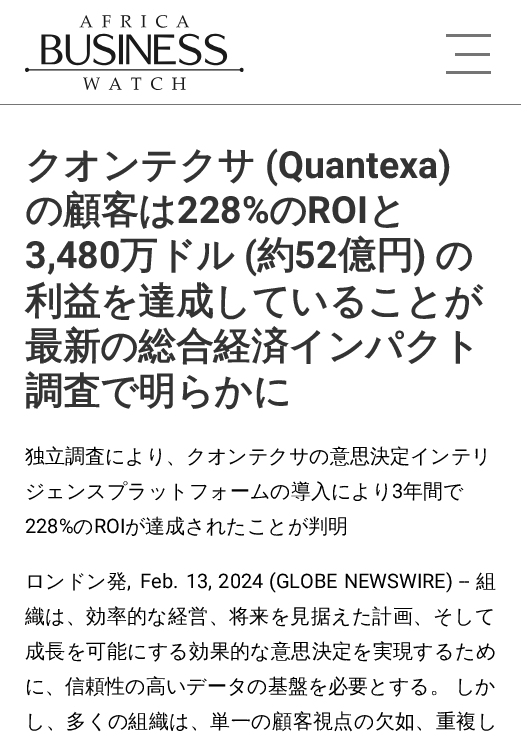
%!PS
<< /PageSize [521 735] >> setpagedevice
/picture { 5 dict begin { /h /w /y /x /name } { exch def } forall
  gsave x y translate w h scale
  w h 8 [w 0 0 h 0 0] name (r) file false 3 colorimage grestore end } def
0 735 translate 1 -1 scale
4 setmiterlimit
1 setgray
0 0 521 735 rectfill
(img1.rgb) 25 15 219 75 picture
0.459 setgray
446 34 45 3 rectfill
455 53 35 3 rectfill
446 71 45 3 rectfill
0 104 521 1 rectfill
/WenQuanYiZenHei-Bold [37.5 0 0 -37.5 0 0] selectfont
0.2 setgray
25 178 moveto (クオンテクサ) show
/Roboto-Bold [37.5 0 0 -37.5 0 0] selectfont
265 178 moveto (\(Quantexa\)) show
/WenQuanYiZenHei-Bold [37.5 0 0 -37.5 0 0] selectfont
25 223 moveto (の顧客は) show
/Roboto-Bold [37.5 0 0 -37.5 0 0] selectfont
177 223 moveto (228%) show
/WenQuanYiZenHei-Bold [37.5 0 0 -37.5 0 0] selectfont
269 223 moveto (の) show
/Roboto-Bold [37.5 0 0 -37.5 0 0] selectfont
307 223 moveto (ROI) show
/WenQuanYiZenHei-Bold [37.5 0 0 -37.5 0 0] selectfont
368 223 moveto (と) show
/Roboto-Bold [37.5 0 0 -37.5 0 0] selectfont
25 268 moveto (3,480) show
/WenQuanYiZenHei-Bold [37.5 0 0 -37.5 0 0] selectfont
120 268 moveto (万ドル) show
/Roboto-Bold [37.5 0 0 -37.5 0 0] selectfont
244 268 moveto (\() show
/WenQuanYiZenHei-Bold [37.5 0 0 -37.5 0 0] selectfont
257 268 moveto (約) show
/Roboto-Bold [37.5 0 0 -37.5 0 0] selectfont
294 268 moveto (52) show
/WenQuanYiZenHei-Bold [37.5 0 0 -37.5 0 0] selectfont
338 268 moveto (億円) show
/Roboto-Bold [37.5 0 0 -37.5 0 0] selectfont
413 268 moveto (\)) show
/WenQuanYiZenHei-Bold [37.5 0 0 -37.5 0 0] selectfont
435 268 moveto (の) show
25 314 moveto (利益を達成していることが) show
25 359 moveto (最新の総合経済インパクト) show
25 404 moveto (調査で明らかに) show
/WenQuanYiZenHei-Medium [20 0 0 -20 0 0] selectfont
0 setgray
25 463 moveto (独立調査により、クオンテクサの意思決定インテリ) show
25 498 moveto (ジェンスプラットフォームの導入により) show
/Roboto-Regular [20 0 0 -20 0 0] selectfont
392 498 moveto (3) show
/WenQuanYiZenHei-Medium [20 0 0 -20 0 0] selectfont
403 498 moveto (年間で) show
/Roboto-Regular [20 0 0 -20 0 0] selectfont
25 533 moveto (228%) show
/WenQuanYiZenHei-Medium [20 0 0 -20 0 0] selectfont
73 533 moveto (の) show
/Roboto-Regular [20 0 0 -20 0 0] selectfont
94 533 moveto (ROI) show
/WenQuanYiZenHei-Medium [20 0 0 -20 0 0] selectfont
125 533 moveto (が達成されたことが判明) show
25 588 moveto (ロンドン発) show
/Roboto-Regular [20 0 0 -20 0 0] selectfont
127 588 moveto 4 0 32 (, Feb.) widthshow
186 588 moveto 1 0 32 (13, 2024) widthshow
269 588 moveto 1 0 32 (\(GLOBE NEWSWIRE\) --) widthshow
/WenQuanYiZenHei-Medium [20 0 0 -20 0 0] selectfont
476 588 moveto (組) show
25 623 moveto 0.3 0 (織は、効率的な経営、将来を見据えた計画、そして) ashow
25 658 moveto 0.3 0 (成長を可能にする効果的な意思決定を実現するため) ashow
25 693 moveto -1 0 32 (に、信頼性の高いデータの基盤を必要とする。 しか) widthshow
25 728 moveto 0.4 0 (し、多くの組織は、単一の顧客視点の欠如、重複し) ashow
showpage
